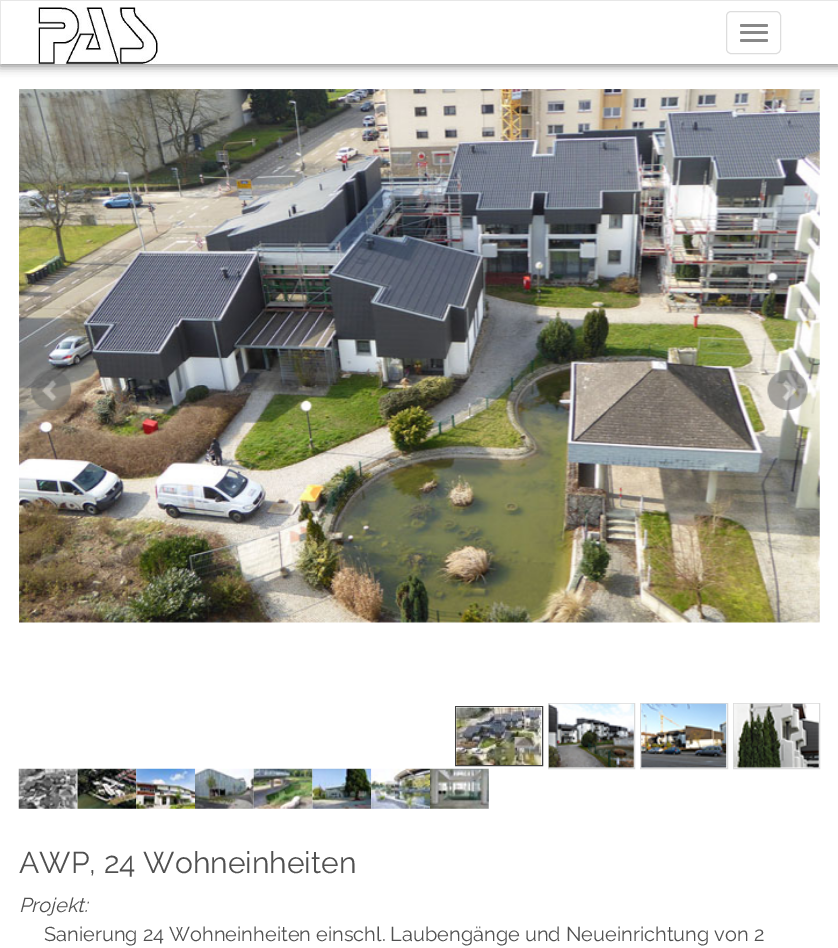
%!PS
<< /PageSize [838 948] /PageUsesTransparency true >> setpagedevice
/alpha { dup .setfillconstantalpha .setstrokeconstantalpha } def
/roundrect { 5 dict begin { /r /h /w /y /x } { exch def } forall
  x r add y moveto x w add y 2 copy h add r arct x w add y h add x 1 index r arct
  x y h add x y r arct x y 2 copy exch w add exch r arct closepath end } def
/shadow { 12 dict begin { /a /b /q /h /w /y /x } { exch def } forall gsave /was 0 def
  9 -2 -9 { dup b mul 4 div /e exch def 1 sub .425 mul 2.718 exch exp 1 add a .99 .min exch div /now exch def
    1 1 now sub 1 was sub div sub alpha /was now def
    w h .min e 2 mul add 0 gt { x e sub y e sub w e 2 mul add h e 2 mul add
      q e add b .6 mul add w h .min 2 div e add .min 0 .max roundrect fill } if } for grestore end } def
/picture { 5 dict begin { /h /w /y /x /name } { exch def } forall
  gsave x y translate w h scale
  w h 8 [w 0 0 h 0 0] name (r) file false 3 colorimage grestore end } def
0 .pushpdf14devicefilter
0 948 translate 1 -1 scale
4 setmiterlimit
1 setgray
0 0 838 948 rectfill
0 setgray
0 3 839 63 0 5 0.5 shadow
1 setgray
1 1 837 63 rectfill
0.906 setgray
0 0 838 1 rectfill
0 0 1 64 rectfill
(img1.rgb) 38 7 120 57 picture
0.867 setgray
726.5 11.5 54 42 4.5 roundrect stroke
0.533 setgray
740 24 28 3 1.5 roundrect fill
740 31 28 3 1.5 roundrect fill
740 39 28 3 1.5 roundrect fill
(img2.rgb) 19 89 801 534 picture
(img3.rgb) 31 370 41 40 picture
(img4.rgb) 767 370 41 40 picture
0.855 setgray
548.5 703.5 86 65 rectstroke
(img5.rgb) 548 703 86 65 picture
640.5 703.5 87 65 rectstroke
(img6.rgb) 641 703 86 65 picture
733.5 703.5 86 65 rectstroke
0.255 setgray
455.5 706.5 87 59 rectstroke
(img7.rgb) 733 703 86 65 picture
(img8.rgb) 456 707 86 58 picture
(img9.rgb) 18 768 60 41 picture
(img10.rgb) 77 768 60 41 picture
(img11.rgb) 136 768 59 41 picture
(img12.rgb) 195 768 59 41 picture
(img13.rgb) 253 768 60 41 picture
(img14.rgb) 312 768 60 41 picture
(img15.rgb) 371 768 59 41 picture
(img16.rgb) 430 768 59 41 picture
/Raleway-Thin [30 0 0 -30 0 0] selectfont
0.314 setgray
19 873 moveto (AWP, 24 Wohneinheiten) show
/Raleway-ThinItalic [20 0 0 -20 0 0] selectfont
19 912 moveto (Projekt:) show
/Raleway-Thin [20 0 0 -20 0 0] selectfont
44 941 moveto (Sanierung 24 Wohneinheiten einschl. Laubengänge und Neueinrichtung von 2) show
.poppdf14devicefilter showpage
